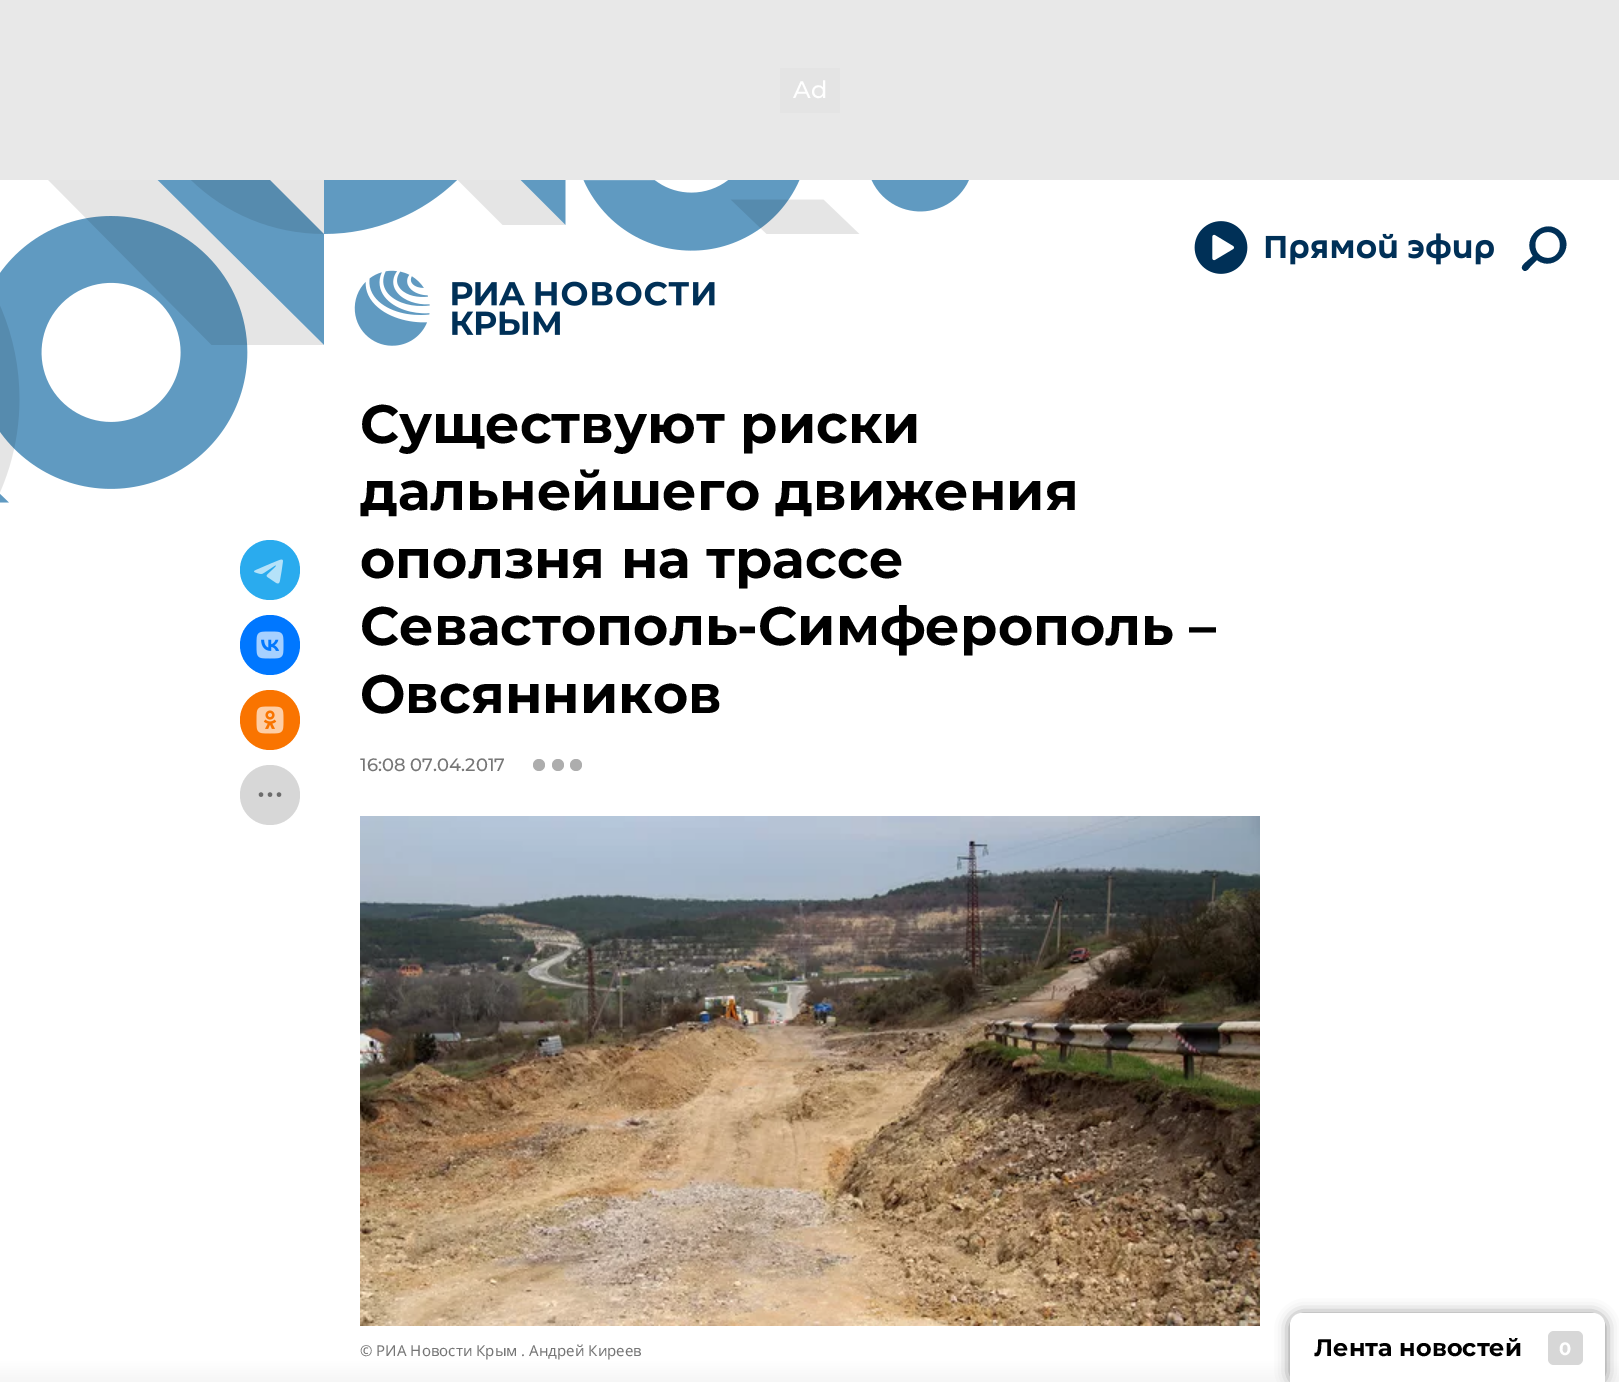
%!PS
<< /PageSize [1619 1382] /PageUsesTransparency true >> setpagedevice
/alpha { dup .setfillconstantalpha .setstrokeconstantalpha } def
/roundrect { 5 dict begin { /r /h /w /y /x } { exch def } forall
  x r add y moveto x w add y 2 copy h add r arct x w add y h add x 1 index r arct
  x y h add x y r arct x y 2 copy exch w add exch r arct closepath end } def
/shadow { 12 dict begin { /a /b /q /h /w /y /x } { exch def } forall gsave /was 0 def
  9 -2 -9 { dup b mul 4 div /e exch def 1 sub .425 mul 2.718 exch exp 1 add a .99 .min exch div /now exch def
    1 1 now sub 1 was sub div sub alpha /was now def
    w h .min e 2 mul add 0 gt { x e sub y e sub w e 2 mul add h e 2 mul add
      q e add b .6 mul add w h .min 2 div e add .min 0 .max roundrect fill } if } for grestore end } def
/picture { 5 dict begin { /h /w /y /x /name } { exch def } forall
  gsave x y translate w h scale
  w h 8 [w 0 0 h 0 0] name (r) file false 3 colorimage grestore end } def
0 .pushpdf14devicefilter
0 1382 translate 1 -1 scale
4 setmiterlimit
0.91 setgray
0 0 1619 1382 rectfill
0.894 setgray
780 68 60 45 rectfill
/Montserrat-Medium [24 0 0 -24 0 0] selectfont
1 setgray
793 98 moveto (Ad) show
0 180 1619 1181 rectfill
(img1.rgb) 0 180 969 323 picture
(img2.rgb) 1194 221 54 53 picture
(img3.rgb) 1265 233 229 32 picture
0 0.188 0.341 setrgbcolor
newpath 1533 256 moveto 1520 238 1545 216 1561 232 curveto 1577 248 1554 273 1537 260 curveto 1530 267 lineto 1529 268 1526 273 1523 270 curveto 1520 267 1524 264 1526 262 curveto closepath 1548 258 moveto 1531 258 1531 232 1548 232 curveto 1564 232 1564 258 1548 258 curveto closepath eofill
(img4.rgb) 354 270 361 76 picture
0.165 0.671 0.933 setrgbcolor
newpath 270 570 30 0 360 arc closepath fill
(img5.rgb) 254 559 29 25 picture
0 0.467 1 setrgbcolor
newpath 270 645 30 0 360 arc closepath fill
(img6.rgb) 256 631 28 28 picture
0.976 0.455 0 setrgbcolor
newpath 270 720 30 0 360 arc closepath fill
(img7.rgb) 256 706 28 28 picture
0.843 setgray
newpath 270 795 30 0 360 arc closepath fill
0.424 setgray
newpath 270 794.6 2.2 0 360 arc closepath fill
newpath 279 794.6 2.2 0 360 arc closepath fill
newpath 261 794.6 2.2 0 360 arc closepath fill
/Montserrat-Bold [54 0 0 -54 0 0] selectfont
0 setgray
360 443 moveto (Существуют риски) show
360 510 moveto (дальнейшего движения) show
360 578 moveto (оползня на трассе) show
360 645 moveto (Севастополь-Симферополь –) show
360 713 moveto (Овсянников) show
/Montserrat-Medium [18 0 0 -18 0 0] selectfont
0.463 setgray
360 771 moveto (16:08 07.04.2017) show
0.678 setgray
newpath 539 765 6 0 360 arc closepath fill
newpath 558 765 6 0 360 arc closepath fill
newpath 576 765 6 0 360 arc closepath fill
(img8.rgb) 360 816 900 510 picture
/NotoSans-Regular [15 0 0 -15 0 0] selectfont
0.463 setgray
360 1356 moveto (© РИА Новости Крым . Андрей Киреев) show
gsave newpath 0 1361 moveto 1619 1361 lineto 1619 1382 lineto 0 1382 lineto closepath clip newpath
<< /ShadingType 2 /ColorSpace /DeviceRGB /Coords [810 1360 810 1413] /Extend [true true] /Function << /FunctionType 3 /Domain [0 1] /Functions [<< /FunctionType 2 /Domain [0 1] /C0 [1 1 1] /C1 [0.949 0.949 0.949] /N 1 >> << /FunctionType 2 /Domain [0 1] /C0 [0.949 0.949 0.949] /C1 [0.91 0.91 0.91] /N 1 >> << /FunctionType 2 /Domain [0 1] /C0 [0.91 0.91 0.91] /C1 [0.82 0.82 0.82] /N 1 >>] /Bounds [0.61 0.86] /Encode [0 1 0 1 0 1] >> >> shfill grestore
0 setgray
1290 1314 315 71 12 7 0.5 shadow
1 setgray
newpath 1302 1313 moveto 1593 1313 lineto 1599.5 1313 1605 1318.5 1605 1325 curveto 1605 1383 lineto 1290 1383 lineto 1290 1325 lineto 1290 1318.5 1295.5 1313 1302 1313 curveto closepath fill
/Montserrat-Bold [24 0 0 -24 0 0] selectfont
0 setgray
1314 1356 moveto (Лента новостей) show
0.843 setgray
1548 1331 35 34 6 roundrect fill
/Montserrat-Bold [18 0 0 -18 0 0] selectfont
1 setgray
1559 1355 moveto (0) show
.poppdf14devicefilter showpage
